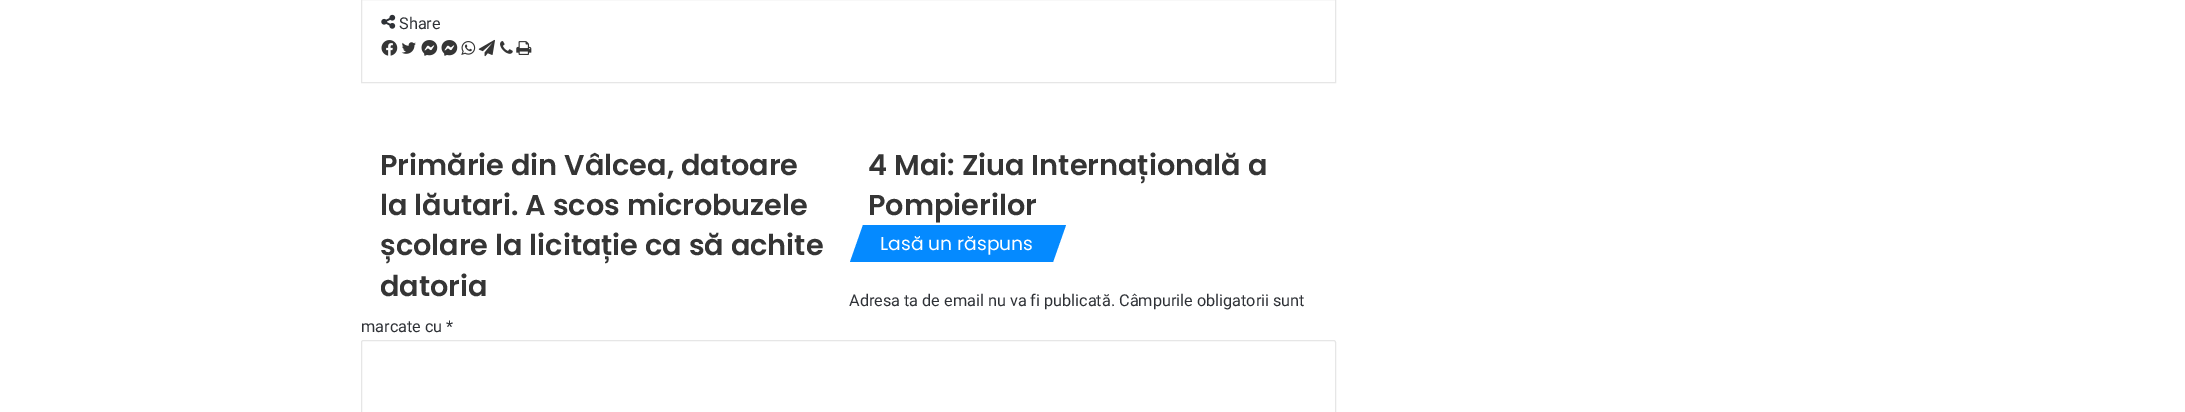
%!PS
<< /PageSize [2185 412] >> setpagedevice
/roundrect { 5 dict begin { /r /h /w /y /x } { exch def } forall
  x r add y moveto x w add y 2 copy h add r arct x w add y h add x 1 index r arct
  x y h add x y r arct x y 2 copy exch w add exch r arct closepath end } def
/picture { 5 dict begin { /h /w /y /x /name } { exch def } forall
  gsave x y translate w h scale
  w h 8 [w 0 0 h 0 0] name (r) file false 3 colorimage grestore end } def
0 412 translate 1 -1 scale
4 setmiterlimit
1 setgray
0 0 2185 412 rectfill
0.902 setgray
361.5 -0.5 974 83 rectstroke
(img1.rgb) 381 14 15 15 picture
/Roboto-Regular [16.25 0 0 -16.25 0 0] selectfont
0.18 0.192 0.212 setrgbcolor
399 29 moveto (Share) show
(img2.rgb) 381 40 17 16 picture
(img3.rgb) 401 42 15 12 picture
(img4.rgb) 421 40 17 16 picture
(img4.rgb) 441 40 17 16 picture
(img5.rgb) 461 41 15 14 picture
(img6.rgb) 478 39 17 18 picture
(img7.rgb) 500 41 13 13 picture
(img8.rgb) 516 41 16 14 picture
/Poppins-SemiBold [28.75 0 0 -28.75 0 0] selectfont
0.208 setgray
380 175 moveto (Primărie din Vâlcea, datoare) show
380 215 moveto (la lăutari. A scos microbuzele) show
380 255 moveto (școlare la licitație ca să achite) show
380 296 moveto (datoria) show
868 175 moveto (4 Mai: Ziua Internațională a) show
868 215 moveto (Pompierilor) show
0.02 0.541 1 setrgbcolor
newpath 863 225 moveto 1066 225 lineto 1053 262 lineto 850 262 lineto closepath fill
/Poppins-Regular [18.75 0 0 -18.75 0 0] selectfont
1 setgray
880 250 moveto (Lasă un răspuns) show
/Roboto-Regular [16.25 0 0 -16.25 0 0] selectfont
0.18 0.192 0.212 setrgbcolor
849 306 moveto (Adresa ta de email nu va fi publicată. Câmpurile obligatorii sunt) show
361 332 moveto (marcate cu *) show
0.902 setgray
361.5 340.5 974 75 2 roundrect stroke
showpage
